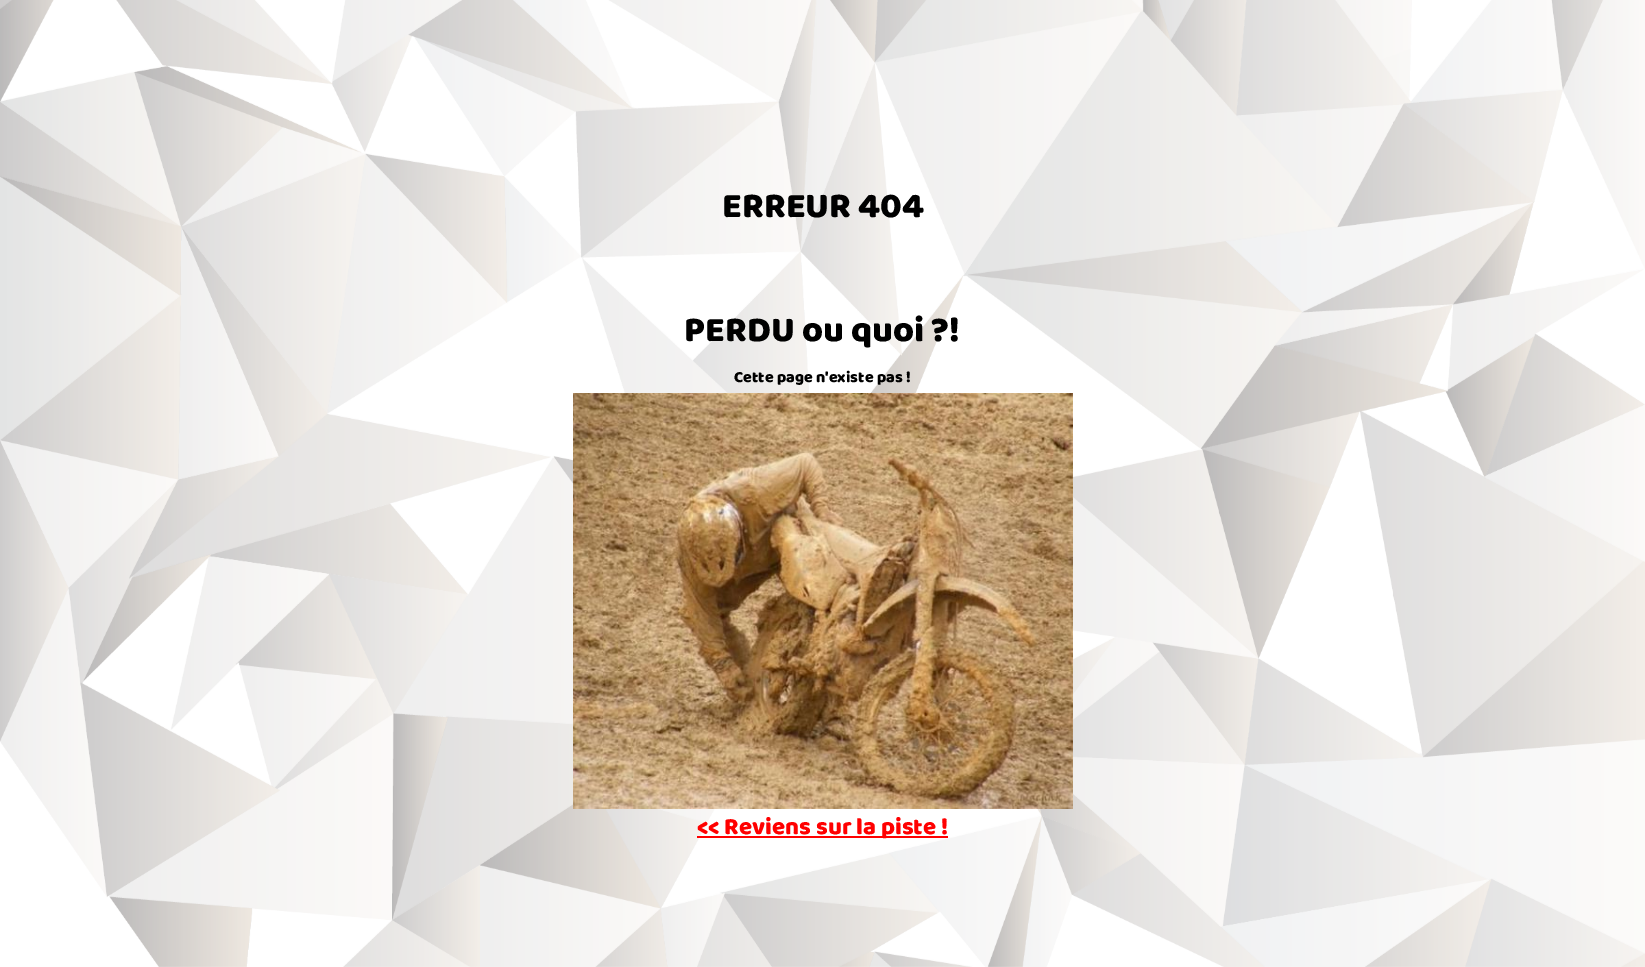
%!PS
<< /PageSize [1645 967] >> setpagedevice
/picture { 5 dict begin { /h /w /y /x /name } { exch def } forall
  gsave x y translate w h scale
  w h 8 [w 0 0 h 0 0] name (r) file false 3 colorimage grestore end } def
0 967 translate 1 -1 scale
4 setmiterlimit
1 setgray
0 0 1645 967 rectfill
(img1.rgb) 0 0 1645 967 picture
/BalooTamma-Regular [36 0 0 -36 0 0] selectfont
0 setgray
722 217 moveto (ERREUR 404) show
684 341 moveto (PERDU ou quoi ?!) show
/BalooTamma-Regular [16 0 0 -16 0 0] selectfont
734 382 moveto (Cette page n'existe pas !) show
(img2.rgb) 573 393 500 416 picture
1 0 0 setrgbcolor
697 836 251 2 rectfill
/BalooTamma-Regular [24 0 0 -24 0 0] selectfont
697 834 moveto (<< Reviens sur la piste !) show
showpage
